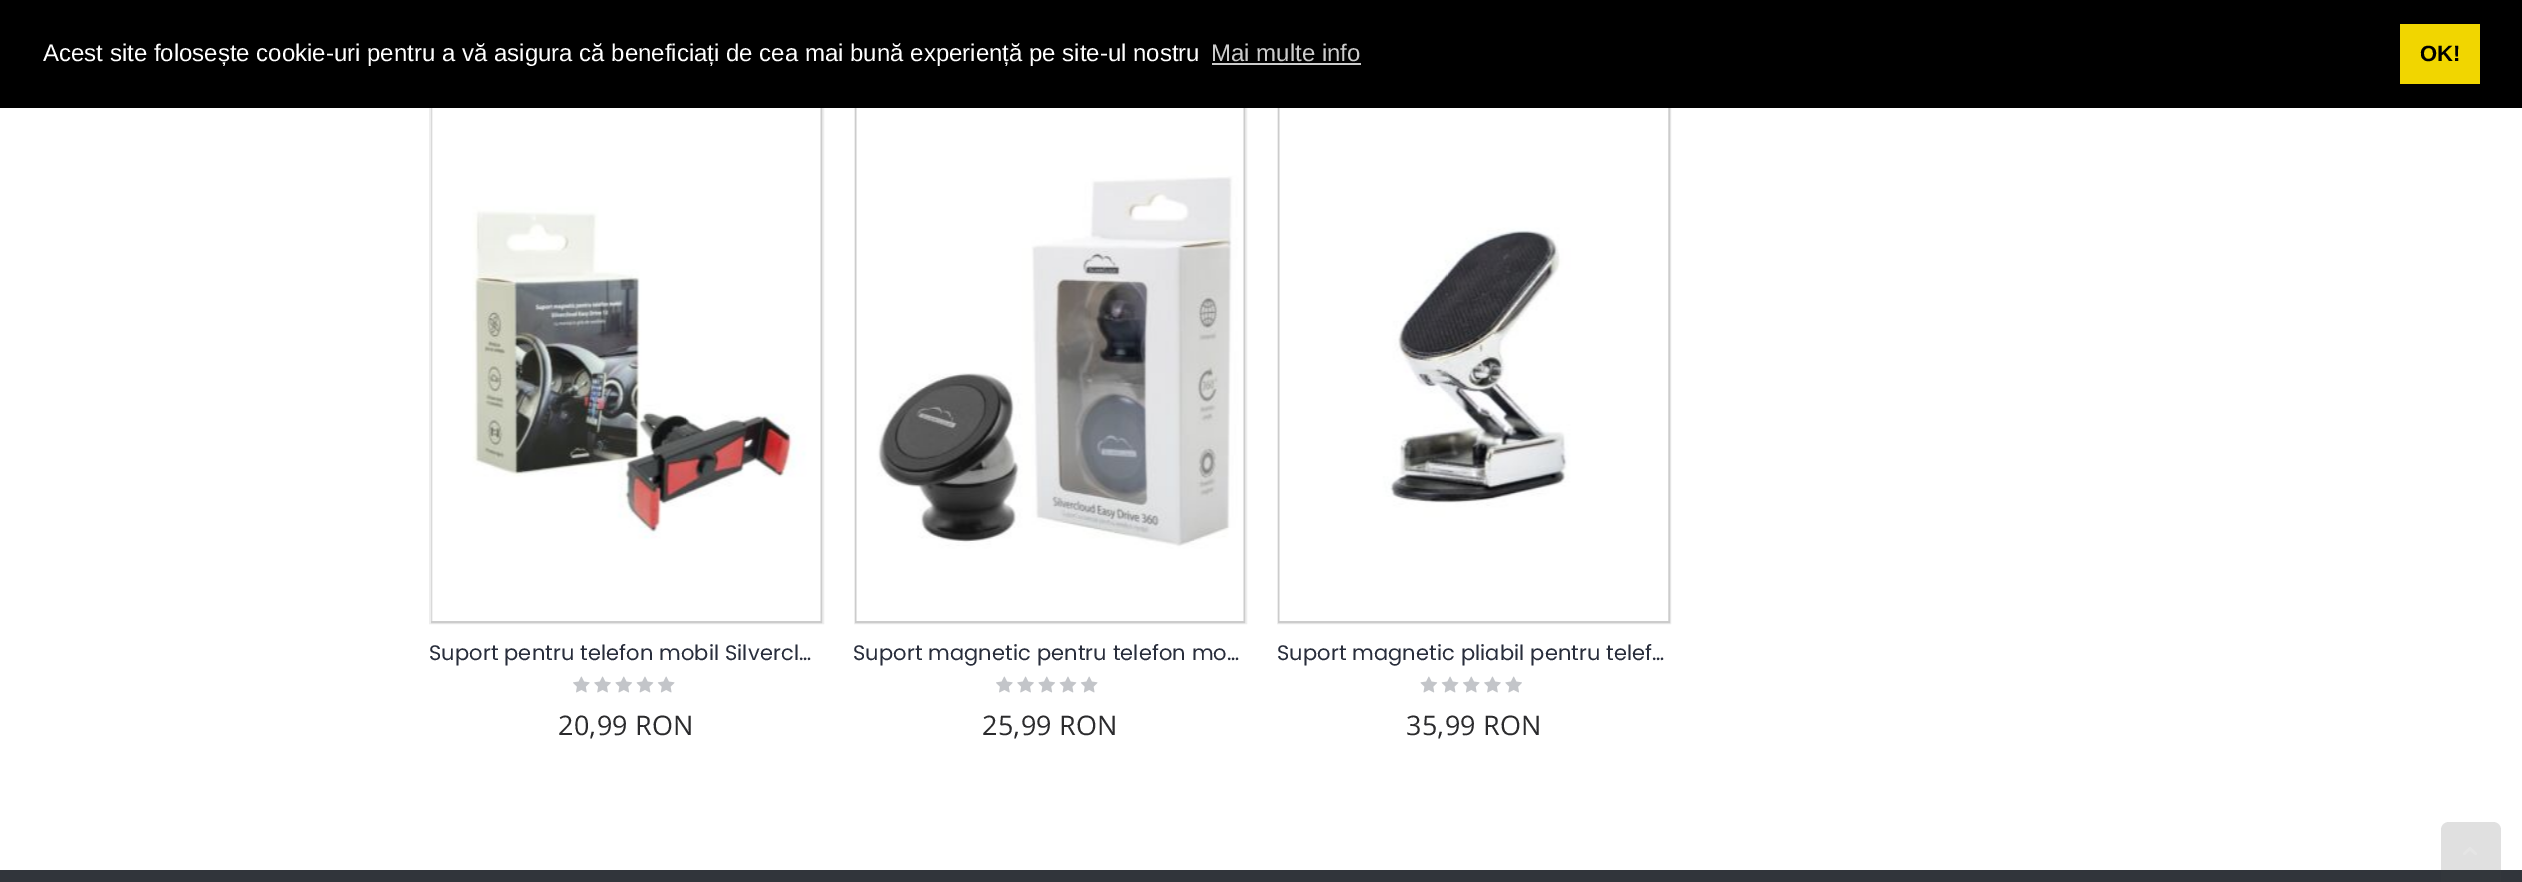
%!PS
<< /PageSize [2522 882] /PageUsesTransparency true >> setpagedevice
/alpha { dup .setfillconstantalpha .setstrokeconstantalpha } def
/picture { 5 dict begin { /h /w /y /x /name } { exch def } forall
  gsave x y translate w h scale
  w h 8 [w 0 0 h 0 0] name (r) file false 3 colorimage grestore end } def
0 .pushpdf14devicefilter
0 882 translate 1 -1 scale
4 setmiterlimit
1 setgray
0 0 2522 882 rectfill
0.933 setgray
2 setlinewidth
430 102 393 521 rectstroke
0.8 setgray
432 103 389 519 rectstroke
0.933 setgray
855 102 391 521 rectstroke
0.8 setgray
856 103 388 519 rectstroke
0.933 setgray
1278 102 392 521 rectstroke
0.8 setgray
1279 103 390 519 rectstroke
0 setgray
0 0 2522 108 rectfill
/LiberationSans-Regular [24 0 0 -24 0 0] selectfont
1 setgray
43 61 moveto (Acest site folosește cookie-uri pentru a vă asigura că beneficiați de cea mai bună experiență pe site-ul nostru) show
0.8 setgray
1211 61 moveto (Mai multe info) show
1212 63 149 2 rectfill
0.945 0.839 0 setrgbcolor
2400 24 80 60 rectfill
/LiberationSans-Bold [22 0 0 -22 0 0] selectfont
0 setgray
2420 61 moveto (OK!) show
(img1.rgb) 431 108 390 513 picture
/Poppins-Regular [21 0 0 -21 0 0] selectfont
0.157 0.176 0.231 setrgbcolor
429 660 moveto 0.1 0 (Suport pentru telefon mobil Silvercl…) ashow
(img2.rgb) 573 676 102 17 picture
/OpenSans-Regular [27 0 0 -27 0 0] selectfont
0.169 0.169 0.176 setrgbcolor
558 735 moveto 0.25 0 (20,99 RON) ashow
(img3.rgb) 856 108 388 513 picture
/Poppins-Regular [21 0 0 -21 0 0] selectfont
0.157 0.176 0.231 setrgbcolor
853 660 moveto 0.1 0 (Suport magnetic pentru telefon mo…) ashow
(img2.rgb) 996 676 102 17 picture
/OpenSans-Regular [27 0 0 -27 0 0] selectfont
0.169 0.169 0.176 setrgbcolor
982 735 moveto 0.25 0 (25,99 RON) ashow
(img4.rgb) 1279 108 390 513 picture
/Poppins-Regular [21 0 0 -21 0 0] selectfont
0.157 0.176 0.231 setrgbcolor
1277 660 moveto 0.1 0 (Suport magnetic pliabil pentru telef…) ashow
(img5.rgb) 1420 676 102 17 picture
/OpenSans-Regular [27 0 0 -27 0 0] selectfont
0.169 0.169 0.176 setrgbcolor
1406 735 moveto 0.25 0 (35,99 RON) ashow
0.192 0.208 0.231 setrgbcolor
0 870 2522 12 rectfill
0.16 alpha
0.251 setgray
newpath 2449 822 moveto 2493 822 lineto 2497.5 822 2501 825.5 2501 830 curveto 2501 882 lineto 2441 882 lineto 2441 830 lineto 2441 825.5 2444.5 822 2449 822 curveto closepath fill
1 alpha
(img6.rgb) 2463 847 14 8 picture
.poppdf14devicefilter showpage
